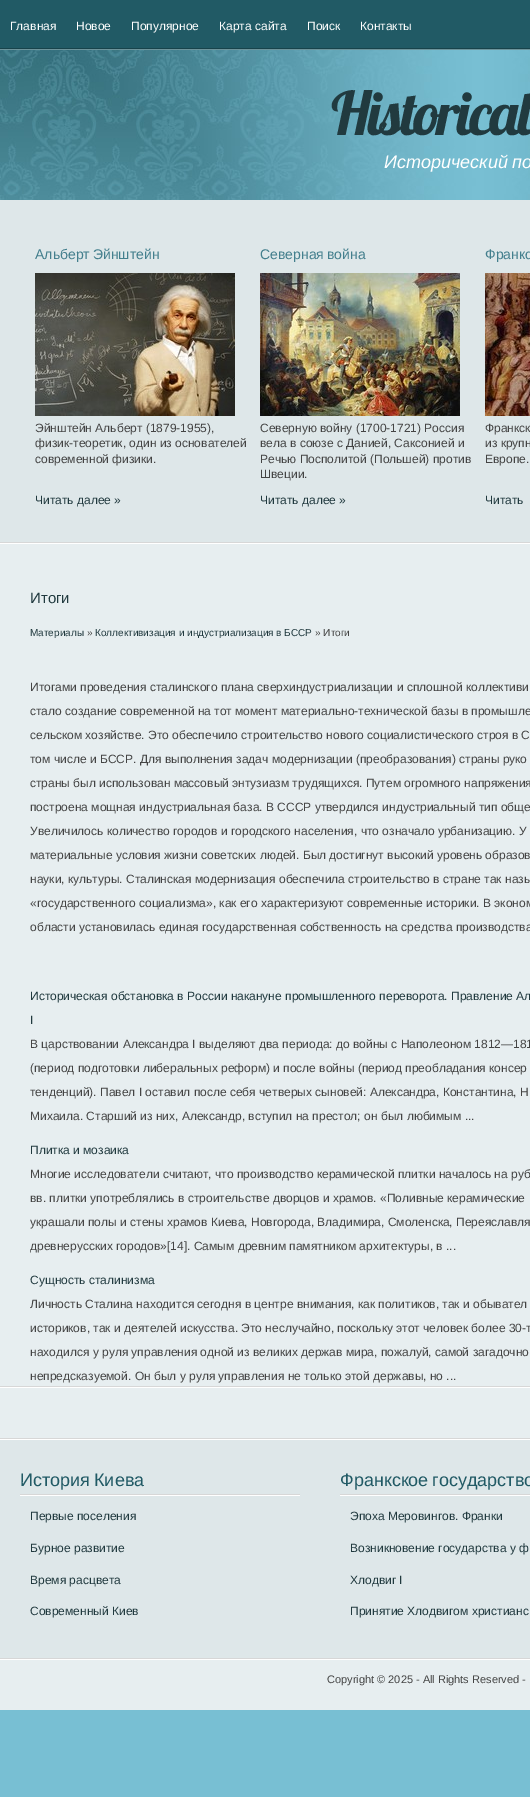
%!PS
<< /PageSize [530 1797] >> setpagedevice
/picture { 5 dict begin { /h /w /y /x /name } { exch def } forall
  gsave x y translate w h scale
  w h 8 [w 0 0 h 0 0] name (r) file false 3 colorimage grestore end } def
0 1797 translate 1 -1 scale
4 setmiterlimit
0.471 0.749 0.827 setrgbcolor
0 0 530 1797 rectfill
0.906 0.933 0.941 setrgbcolor
0 544 530 1166 rectfill
(img1.rgb) 0 0 530 50 picture
/LiberationSans-Regular [12 0 0 -12 0 0] selectfont
1 setgray
10 30 moveto (Главная) show
76 30 moveto (Новое) show
131 30 moveto (Популярное) show
219 30 moveto (Карта сайта) show
307 30 moveto (Поиск) show
360 30 moveto (Контакты) show
(img2.rgb) 0 50 530 150 picture
/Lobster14-Regular [60 0 0 -60 0 0] selectfont
0.129 0.227 0.247 setrgbcolor
331 135 moveto -3 0 (Historical) ashow
/LiberationSans-Italic [18 0 0 -18 0 0] selectfont
1 setgray
384 168 moveto -1 0 32 (Исторический по) widthshow
0.871 0.906 0.914 setrgbcolor
0 200 530 342 rectfill
(img3.rgb) 0 542 530 2 picture
/LiberationSans-Regular [14 0 0 -14 0 0] selectfont
0.263 0.498 0.553 setrgbcolor
35 259 moveto -1 0 32 (Альберт Эйнштейн) widthshow
(img4.rgb) 35 273 200 143 picture
/LiberationSans-Regular [12 0 0 -12 0 0] selectfont
0.267 setgray
35 432 moveto (Эйнштейн Альберт \(1879-1955\),) show
35 447 moveto (физик-теоретик, один из основателей) show
35 463 moveto (современной физики.) show
0.129 0.227 0.247 setrgbcolor
35 504 moveto (Читать далее ») show
/LiberationSans-Regular [14 0 0 -14 0 0] selectfont
0.263 0.498 0.553 setrgbcolor
260 259 moveto -1 0 32 (Северная война) widthshow
(img5.rgb) 260 273 200 143 picture
/LiberationSans-Regular [12 0 0 -12 0 0] selectfont
0.267 setgray
260 432 moveto (Северную войну \(1700-1721\) Россия) show
260 447 moveto (вела в союзе с Данией, Саксонией и) show
260 463 moveto (Речью Посполитой \(Польшей\) против) show
260 478 moveto (Швеции.) show
0.129 0.227 0.247 setrgbcolor
260 504 moveto (Читать далее ») show
/LiberationSans-Regular [14 0 0 -14 0 0] selectfont
0.263 0.498 0.553 setrgbcolor
485 259 moveto -1 0 32 (Франкс) widthshow
(img6.rgb) 485 273 45 143 picture
/LiberationSans-Regular [12 0 0 -12 0 0] selectfont
0.267 setgray
485 432 moveto (Франкск) show
485 447 moveto (из крупн) show
485 463 moveto (Европе.) show
0.129 0.227 0.247 setrgbcolor
485 504 moveto (Читать) show
(img3.rgb) 0 1386 530 2 picture
/LiberationSans-Regular [15 0 0 -15 0 0] selectfont
30 603 moveto (Итоги) show
/LiberationSans-Regular [10 0 0 -10 0 0] selectfont
30 636 moveto (Материалы) show
0.267 setgray
87 636 moveto (») show
0.129 0.227 0.247 setrgbcolor
95 636 moveto (Коллективизация и индустриализация в БССР) show
0.267 setgray
315 636 moveto (» Итоги) show
/LiberationSans-Regular [12 0 0 -12 0 0] selectfont
30 691 moveto (Итогами проведения сталинского плана сверхиндустриализации и сплошной коллективи) show
30 715 moveto (стало создание современной на тот момент материально-технической базы в промышле) show
30 739 moveto (сельском хозяйстве. Это обеспечило строительство нового социалистического строя в С) show
30 763 moveto (том числе и БССР. Для выполнения задач модернизации \(преобразования\) страны руко) show
30 787 moveto (страны был использован массовый энтузиазм трудящихся. Путем огромного напряжения) show
30 811 moveto (построена мощная индустриальная база. В СССР утвердился индустриальный тип обще) show
30 835 moveto (Увеличилось количество городов и городского населения, что означало урбанизацию. У) show
30 859 moveto (материальные условия жизни советских людей. Был достигнут высокий уровень образов) show
30 883 moveto (науки, культуры. Сталинская модернизация обеспечила строительство в стране так назы) show
30 907 moveto («государственного социализма», как его характеризуют современные историки. В эконом) show
30 931 moveto (области установилась единая государственная собственность на средства производства) show
0.129 0.227 0.247 setrgbcolor
30 1000 moveto (Историческая обстановка в России накануне промышленного переворота. Правление Ал) show
30 1024 moveto (I) show
0.267 setgray
30 1048 moveto (В царствовании Александра I выделяют два периода: до войны с Наполеоном 1812—181) show
30 1072 moveto (\(период подготовки либеральных реформ\) и после войны \(период преобладания консер) show
30 1096 moveto (тенденций\). Павел I оставил после себя четверых сыновей: Александра, Константина, Н) show
30 1120 moveto (Михаила. Старший из них, Александр, вступил на престол; он был любимым ...) show
0.129 0.227 0.247 setrgbcolor
30 1154 moveto (Плитка и мозаика) show
0.267 setgray
30 1178 moveto (Многие исследователи считают, что производство керамической плитки началось на руб) show
30 1202 moveto (вв. плитки употреблялись в строительстве дворцов и храмов. «Поливные керамические) show
30 1226 moveto (украшали полы и стены храмов Киева, Новгорода, Владимира, Смоленска, Переяславля) show
30 1250 moveto (древнерусских городов»[14]. Самым древним памятником архитектуры, в ...) show
0.129 0.227 0.247 setrgbcolor
30 1284 moveto (Сущность сталинизма) show
0.267 setgray
30 1308 moveto (Личность Сталина находится сегодня в центре внимания, как политиков, так и обывател) show
30 1332 moveto (историков, так и деятелей искусства. Это неслучайно, поскольку этот человек более 30-т) show
30 1356 moveto (находился у руля управления одной из великих держав мира, пожалуй, самой загадочно) show
30 1380 moveto (непредсказуемой. Он был у руля управления не только этой державы, но ...) show
0.871 0.906 0.914 setrgbcolor
0 1440 530 218 rectfill
(img3.rgb) 0 1438 530 2 picture
(img7.rgb) 20 1494 280 2 picture
/LiberationSans-Regular [18 0 0 -18 0 0] selectfont
0.129 0.353 0.396 setrgbcolor
20 1486 moveto -1 0 32 (История Киева) widthshow
/LiberationSans-Regular [12 0 0 -12 0 0] selectfont
0.129 0.227 0.247 setrgbcolor
30 1520 moveto (Первые поселения) show
30 1552 moveto (Бурное развитие) show
30 1584 moveto (Время расцвета) show
30 1615 moveto (Современный Киев) show
(img8.rgb) 340 1494 190 2 picture
/LiberationSans-Regular [18 0 0 -18 0 0] selectfont
0.129 0.353 0.396 setrgbcolor
340 1486 moveto -1 0 32 (Франкское государство) widthshow
/LiberationSans-Regular [12 0 0 -12 0 0] selectfont
0.129 0.227 0.247 setrgbcolor
350 1520 moveto (Эпоха Меровингов. Франки) show
350 1552 moveto (Возникновение государства у ф) show
350 1584 moveto (Хлодвиг I) show
350 1615 moveto (Принятие Хлодвигом христианс) show
(img3.rgb) 0 1658 530 2 picture
/LiberationSans-Regular [11 0 0 -11 0 0] selectfont
0.267 setgray
327 1683 moveto (Copyright © 2025 - All Rights Reserved -) show
showpage
